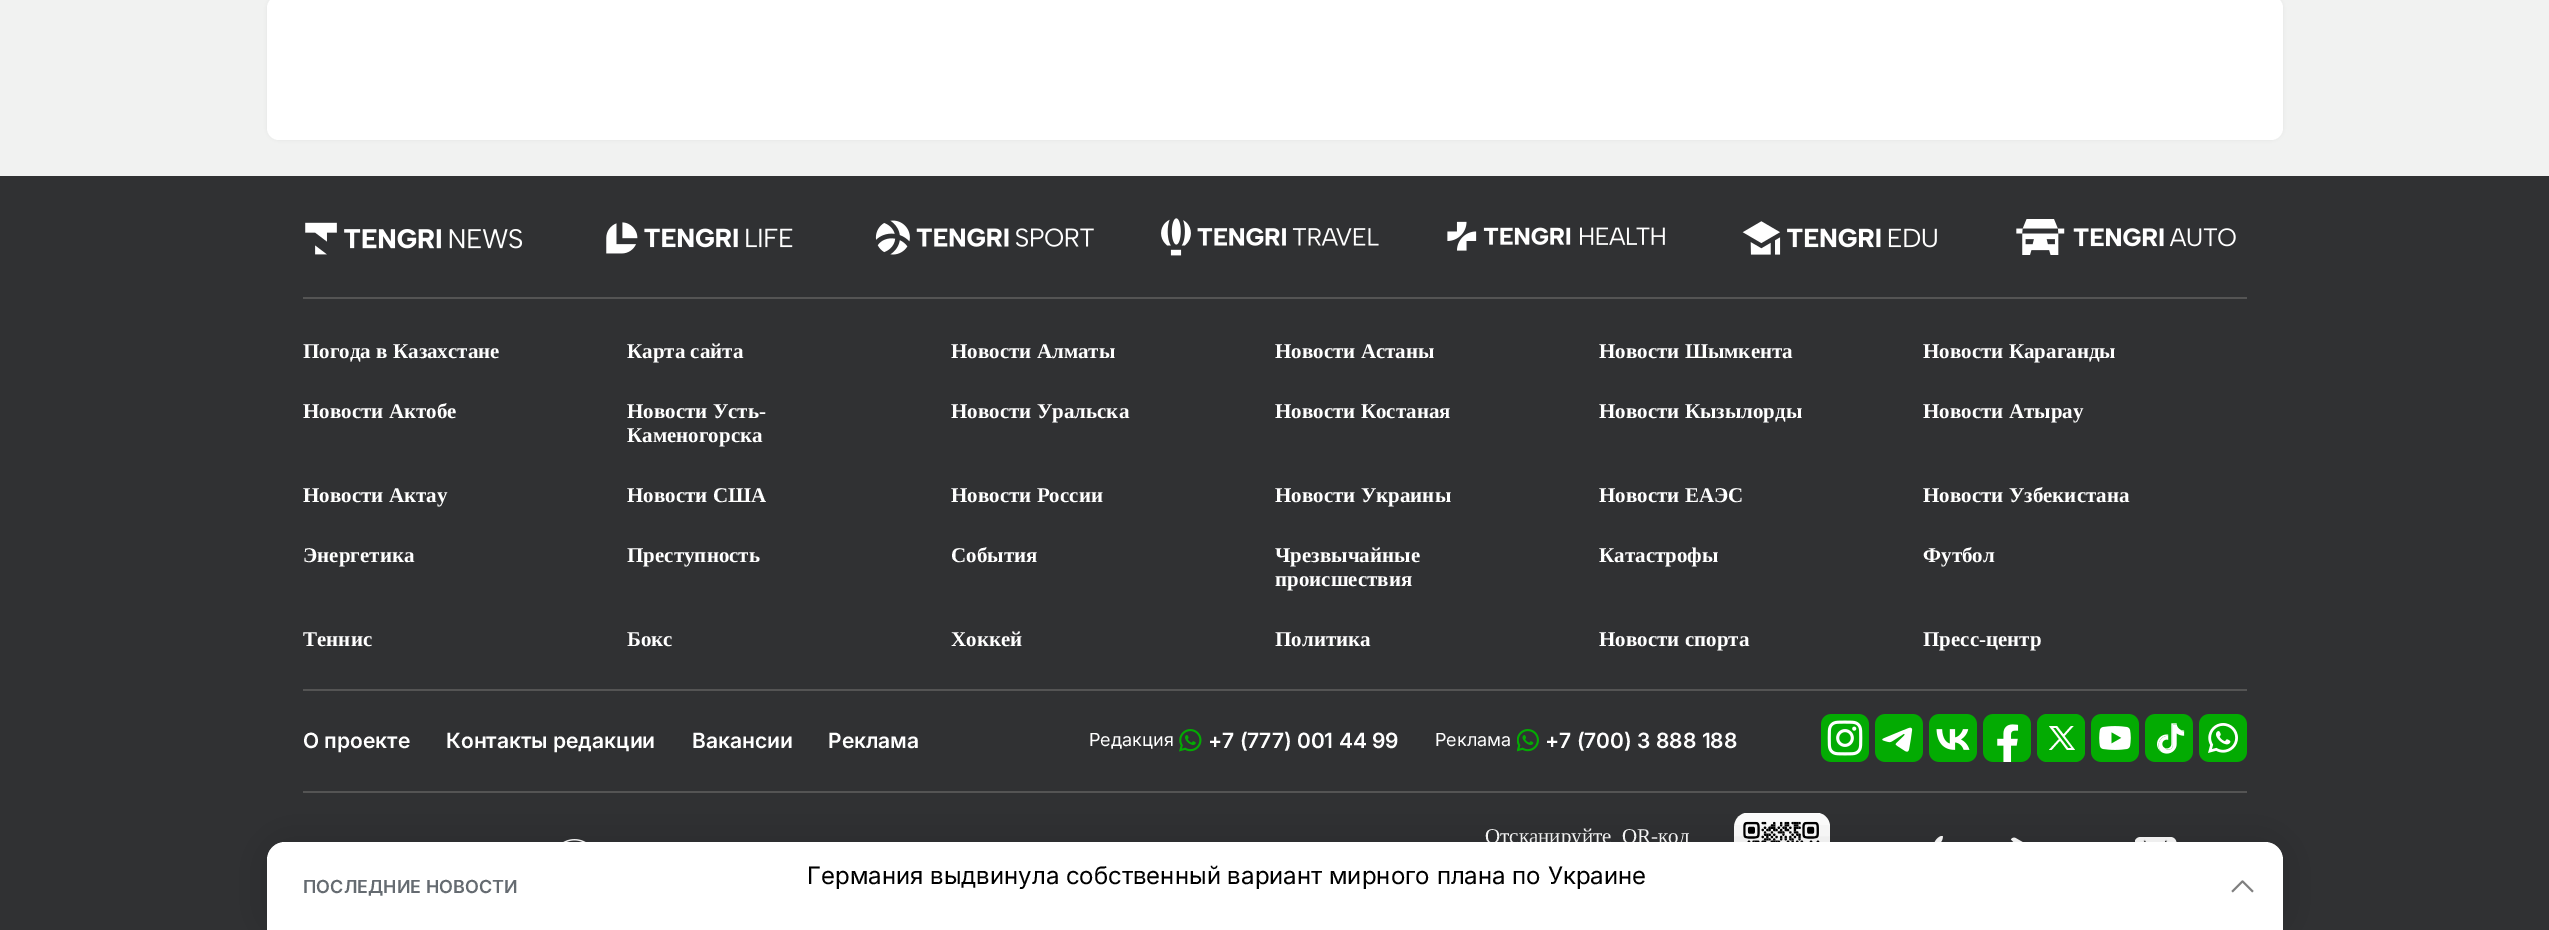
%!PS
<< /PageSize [2549 930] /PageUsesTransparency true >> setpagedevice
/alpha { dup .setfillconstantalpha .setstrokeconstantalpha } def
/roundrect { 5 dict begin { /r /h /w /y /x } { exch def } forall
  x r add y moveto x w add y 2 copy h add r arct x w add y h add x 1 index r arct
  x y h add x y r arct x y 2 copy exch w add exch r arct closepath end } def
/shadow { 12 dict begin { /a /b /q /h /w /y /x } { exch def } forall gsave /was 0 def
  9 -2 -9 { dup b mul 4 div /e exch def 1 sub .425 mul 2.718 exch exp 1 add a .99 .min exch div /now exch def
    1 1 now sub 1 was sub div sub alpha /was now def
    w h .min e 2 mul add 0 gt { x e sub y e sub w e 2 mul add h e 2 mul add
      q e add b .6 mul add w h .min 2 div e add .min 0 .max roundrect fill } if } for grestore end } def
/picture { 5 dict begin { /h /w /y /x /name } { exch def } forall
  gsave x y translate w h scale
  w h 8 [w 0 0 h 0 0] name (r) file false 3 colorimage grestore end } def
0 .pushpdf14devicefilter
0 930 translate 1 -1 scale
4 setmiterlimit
0.945 0.949 0.945 setrgbcolor
0 0 2549 930 rectfill
0.188 0.192 0.2 setrgbcolor
0 176 2549 754 rectfill
0.329 setgray
303 297 1944 2 rectfill
(img1.rgb) 305 222 218 33 picture
(img2.rgb) 606 222 187 32 picture
(img3.rgb) 875 220 219 35 picture
(img4.rgb) 1161 218 218 38 picture
(img5.rgb) 1447 221 218 30 picture
(img6.rgb) 1742 221 195 34 picture
(img7.rgb) 2016 219 220 36 picture
303 689 1944 2 rectfill
/LiberationSerif-Bold [21 0 0 -21 0 0] selectfont
1 setgray
303 358 moveto (Погода в Казахстане) show
627 358 moveto (Карта сайта) show
951 358 moveto (Новости Алматы) show
1275 358 moveto (Новости Астаны) show
1599 358 moveto (Новости Шымкента) show
1923 358 moveto (Новости Караганды) show
303 418 moveto (Новости Актобе) show
627 418 moveto (Новости Усть-) show
627 442 moveto (Каменогорска) show
951 418 moveto (Новости Уральска) show
1275 418 moveto (Новости Костаная) show
1599 418 moveto (Новости Кызылорды) show
1923 418 moveto (Новости Атырау) show
303 502 moveto (Новости Актау) show
627 502 moveto (Новости США) show
951 502 moveto (Новости России) show
1275 502 moveto (Новости Украины) show
1599 502 moveto (Новости ЕАЭС) show
1923 502 moveto (Новости Узбекистана) show
303 562 moveto (Энергетика) show
627 562 moveto (Преступность) show
951 562 moveto (События) show
1275 562 moveto (Чрезвычайные) show
1275 586 moveto (происшествия) show
1599 562 moveto (Катастрофы) show
1923 562 moveto (Футбол) show
303 646 moveto (Теннис) show
627 646 moveto (Бокс) show
951 646 moveto (Хоккей) show
1275 646 moveto (Политика) show
1599 646 moveto (Новости спорта) show
1923 646 moveto (Пресс-центр) show
0.329 setgray
303 791 1944 2 rectfill
/Inter-SemiBold [21 0 0 -21 0 0] selectfont
1 setgray
303 748 moveto (О проекте) show
446 748 moveto (Контакты редакции) show
692 748 moveto (Вакансии) show
828 748 moveto (Реклама) show
/Inter-Regular [18 0 0 -18 0 0] selectfont
1089 746 moveto (Редакция) show
(img8.rgb) 1179 729 23 23 picture
/Inter-SemiBold [21 0 0 -21 0 0] selectfont
1208 748 moveto (+7 \(777\) 001 44 99) show
/Inter-Regular [18 0 0 -18 0 0] selectfont
1435 746 moveto (Реклама) show
(img9.rgb) 1517 729 22 23 picture
/Inter-SemiBold [21 0 0 -21 0 0] selectfont
1545 748 moveto (+7 \(700\) 3 888 188) show
(img10.rgb) 1821 714 48 48 picture
(img11.rgb) 1875 714 48 48 picture
(img12.rgb) 1929 714 48 48 picture
(img13.rgb) 1983 714 48 48 picture
0.012 0.671 0.008 setrgbcolor
2037 714 48 48 10 roundrect fill
1 setgray
newpath 2059 739 moveto 2049 726 lineto 2057 726 lineto 2063.5 734.5 lineto 2071 726 lineto 2073.5 726 lineto 2064.5 736 lineto 2075 750 lineto 2067 750 lineto 2060 740.5 lineto 2051.5 750 lineto 2049 750 lineto closepath 2068 748 moveto 2053 728 lineto 2056 728 lineto 2071.5 748 lineto closepath eofill
(img14.rgb) 2091 714 48 48 picture
(img15.rgb) 2145 714 48 48 picture
(img16.rgb) 2199 714 48 48 picture
(img17.rgb) 563 839 23 3 picture
/LiberationSerif-Regular [21 0 0 -21 0 0] selectfont
1485 843 moveto 5 0 32 (Отсканируйте QR-код) widthshow
(img18.rgb) 1734 813 96 29 picture
(img19.rgb) 1934 836 9 6 picture
(img20.rgb) 2010 837 13 5 picture
(img21.rgb) 2135 837 42 5 picture
0 setgray
267 -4 2016 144 12 2 0.05 shadow
1 setgray
267 -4 2016 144 12 roundrect fill
0 setgray
267 842 2016 88 18 22.5 0.12 shadow
1 setgray
newpath 285 842 moveto 2265 842 lineto 2275 842 2283 850 2283 860 curveto 2283 930 lineto 267 930 lineto 267 860 lineto 267 850 275 842 285 842 curveto closepath fill
/Inter-SemiBold [18 0 0 -18 0 0] selectfont
0.396 0.42 0.443 setrgbcolor
303 893 moveto (ПОСЛЕДНИЕ НОВОСТИ) show
(img22.rgb) 2231 880 23 13 picture
/Inter-Regular [24 0 0 -24 0 0] selectfont
0 setgray
807 884 moveto (Германия выдвинула собственный вариант мирного плана по Украине) show
.poppdf14devicefilter showpage
